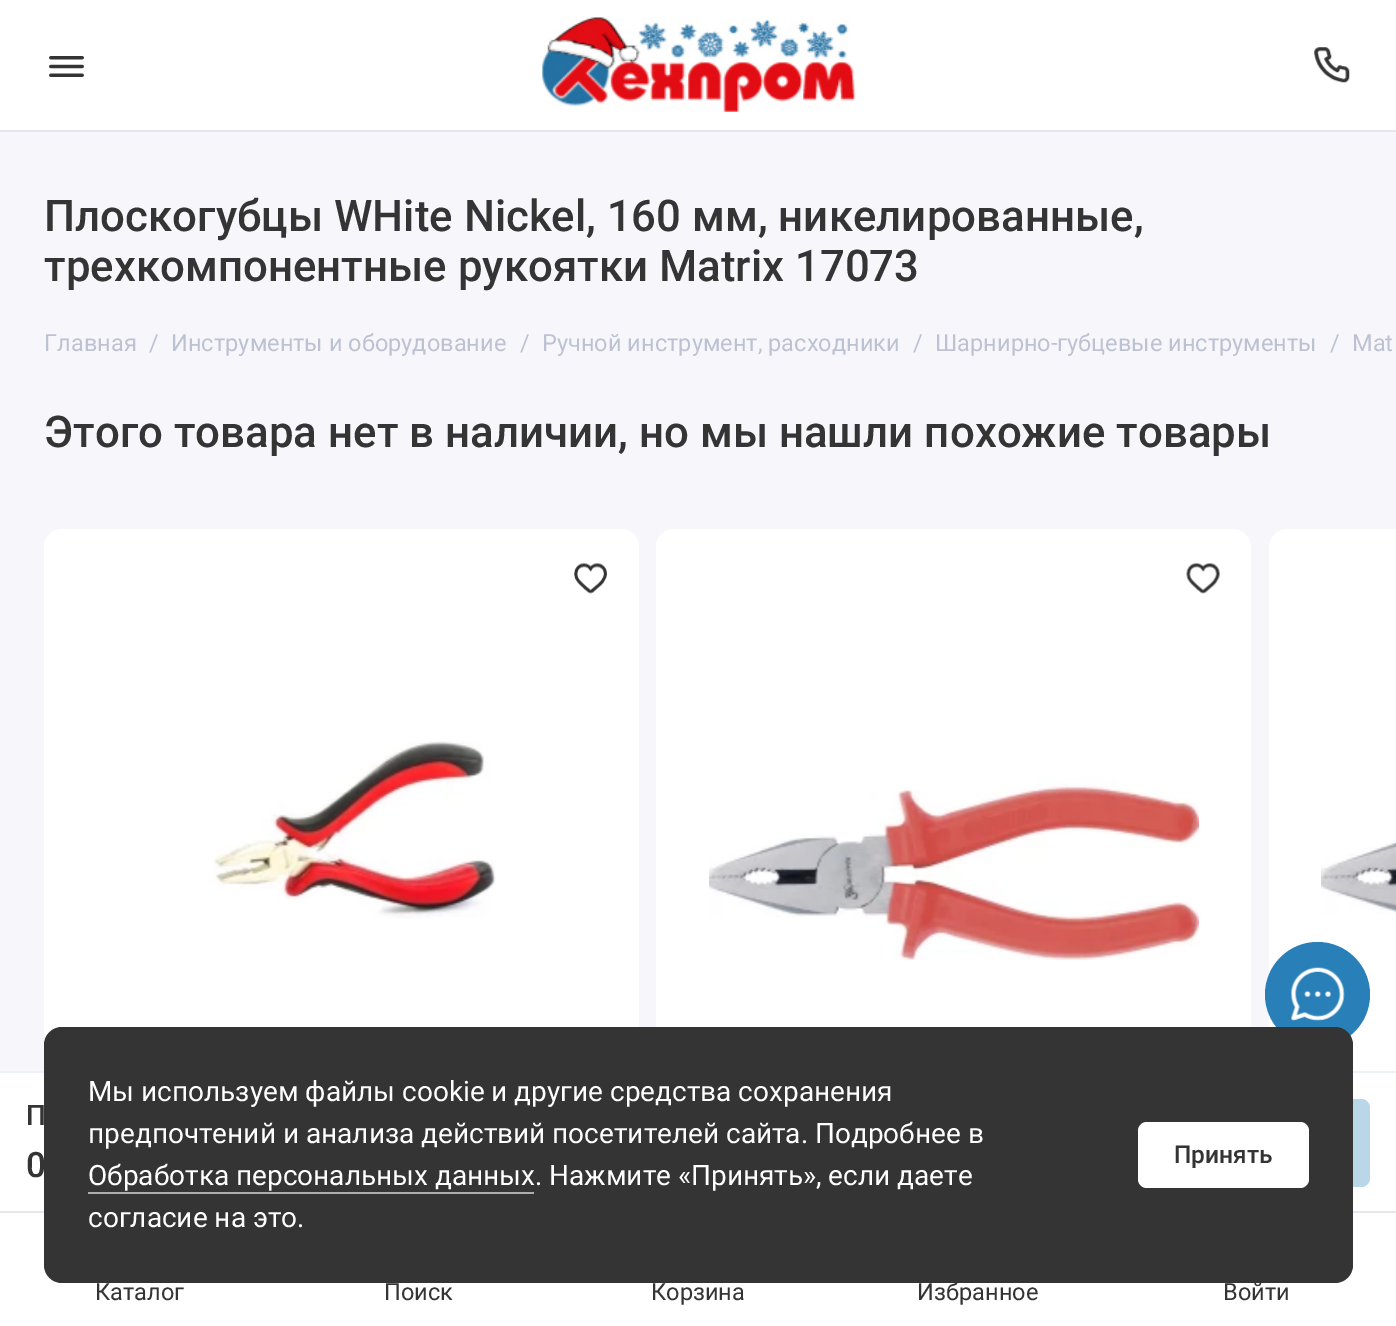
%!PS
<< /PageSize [1396 1326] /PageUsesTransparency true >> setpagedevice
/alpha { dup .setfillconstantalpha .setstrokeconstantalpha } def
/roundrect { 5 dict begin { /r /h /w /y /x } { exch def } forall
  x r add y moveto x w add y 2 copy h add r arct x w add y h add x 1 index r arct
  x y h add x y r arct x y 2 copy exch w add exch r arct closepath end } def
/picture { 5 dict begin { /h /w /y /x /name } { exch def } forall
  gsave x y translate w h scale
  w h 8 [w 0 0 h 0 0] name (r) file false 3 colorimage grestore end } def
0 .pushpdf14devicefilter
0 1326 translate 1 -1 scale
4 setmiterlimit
0.969 0.969 0.984 setrgbcolor
0 0 1396 1326 rectfill
/Roboto-Medium [43.75 0 0 -43.75 0 0] selectfont
0.204 setgray
44 231 moveto (Плоскогубцы WHite Nickel, 160 мм, никелированные,) show
44 281 moveto (трехкомпонентные рукоятки Matrix 17073) show
/Roboto-Regular [23.6 0 0 -23.6 0 0] selectfont
0.741 0.761 0.827 setrgbcolor
44 351 moveto (Главная) show
149 351 moveto (/) show
171 351 moveto (Инструменты и оборудование) show
520 351 moveto (/) show
542 351 moveto (Ручной инструмент, расходники) show
913 351 moveto (/) show
935 351 moveto (Шарнирно-губцевые инструменты) show
1330 351 moveto (/) show
1352 351 moveto (Mat) show
/Roboto-Medium [43.75 0 0 -43.75 0 0] selectfont
0.204 setgray
44 447 moveto (Этого товара нет в наличии, но мы нашли похожие товары) show
1 setgray
44 529 595 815 18 roundrect fill
656 529 595 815 18 roundrect fill
0 1073 1269 138 rectfill
newpath 1287 529 moveto 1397 529 lineto 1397 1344 lineto 1287 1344 lineto 1277 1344 1269 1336 1269 1326 curveto 1269 547 lineto 1269 537 1277 529 1287 529 curveto closepath fill
0.929 0.941 0.973 setrgbcolor
0 1071 1396 2 rectfill
/Roboto-Medium [28 0 0 -28 0 0] selectfont
0.204 setgray
26 1125 moveto (П) show
/Roboto-Medium [35 0 0 -35 0 0] selectfont
26 1177 moveto (0) show
0.663 0.8 0.89 setrgbcolor
1020 1099 350 88 9 roundrect fill
0.2 alpha
1 setgray
1020 1099 350 88 9 roundrect fill
1 alpha
(img1.rgb) 574 563 33 31 picture
(img2.rgb) 213 741 283 178 picture
(img3.rgb) 1186 563 34 31 picture
(img4.rgb) 709 777 490 183 picture
(img5.rgb) 1321 840 75 74 picture
0.161 0.502 0.725 setrgbcolor
newpath 1317.5 994.5 52.5 0 360 arc closepath fill
1 setgray
0 1213 1269 113 rectfill
0.894 0.906 0.945 setrgbcolor
0 1211 1396 2 rectfill
0.204 setgray
44 1027 1309 256 18 roundrect fill
/Roboto-Regular [28 0 0 -28 0 0] selectfont
1 setgray
88 1101 moveto (Мы используем файлы cookie и другие средства сохранения) show
88 1143 moveto (предпочтений и анализа действий посетителей сайта. Подробнее в) show
88 1185 moveto (Обработка персональных данных. Нажмите «Принять», если даете) show
0.682 setgray
88 1192 446 2 rectfill
1 setgray
88 1227 moveto (согласие на это.) show
1138 1122 171 66 9 roundrect fill
/Roboto-Medium [24.5 0 0 -24.5 0 0] selectfont
0.204 setgray
1174 1163 moveto (Принять) show
(img6.rgb) 1291 967 54 54 picture
1 setgray
0 0 1396 130 rectfill
0.894 0.906 0.945 setrgbcolor
0 130 1396 2 rectfill
(img7.rgb) 49 56 35 21 picture
(img8.rgb) 542 17 314 95 picture
(img9.rgb) 1314 47 36 36 picture
/Roboto-Regular [23.6 0 0 -23.6 0 0] selectfont
0.204 setgray
95 1300 moveto (Каталог) show
384 1300 moveto (Поиск) show
651 1300 moveto (Корзина) show
917 1300 moveto (Избранное) show
1223 1300 moveto (Войти) show
.poppdf14devicefilter showpage
